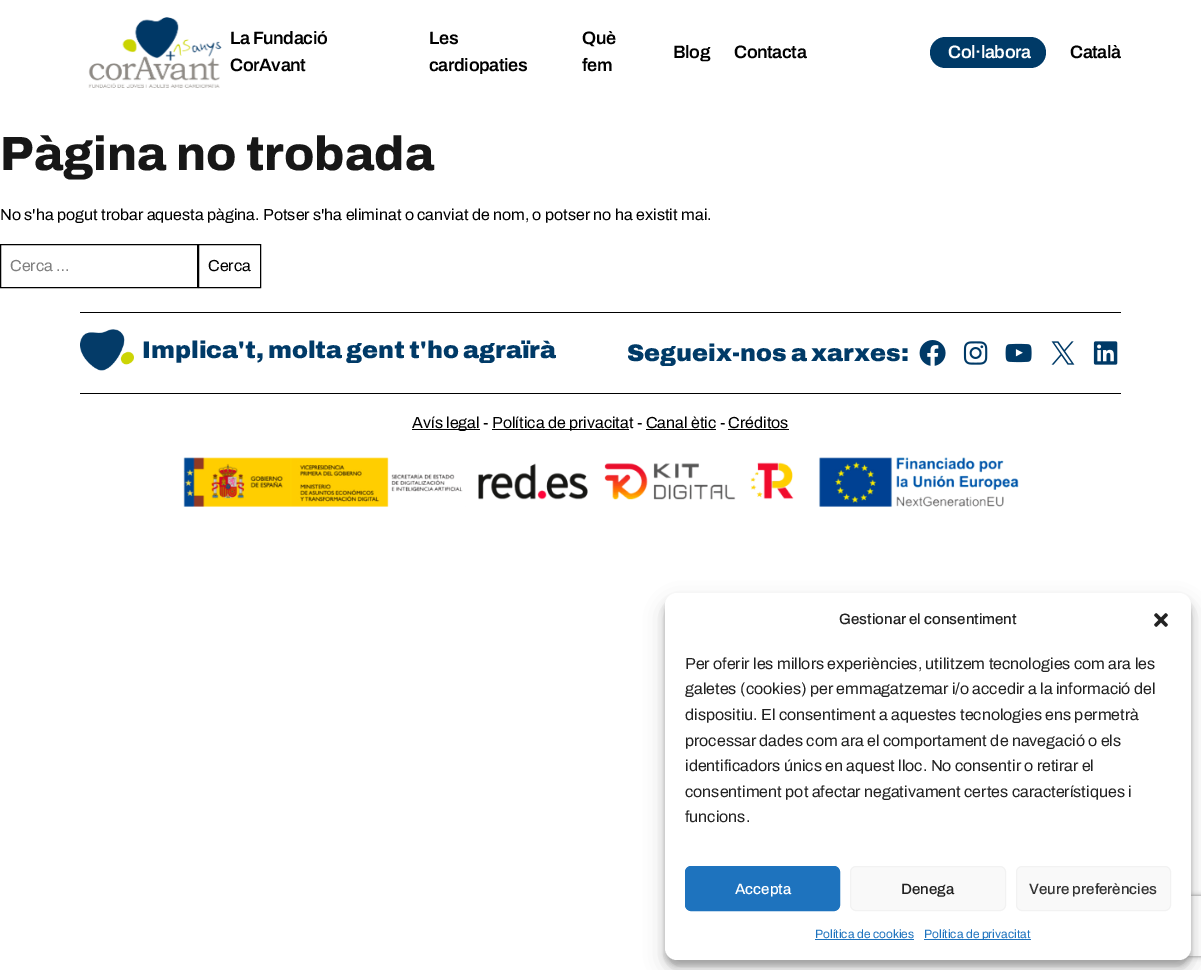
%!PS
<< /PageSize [1201 970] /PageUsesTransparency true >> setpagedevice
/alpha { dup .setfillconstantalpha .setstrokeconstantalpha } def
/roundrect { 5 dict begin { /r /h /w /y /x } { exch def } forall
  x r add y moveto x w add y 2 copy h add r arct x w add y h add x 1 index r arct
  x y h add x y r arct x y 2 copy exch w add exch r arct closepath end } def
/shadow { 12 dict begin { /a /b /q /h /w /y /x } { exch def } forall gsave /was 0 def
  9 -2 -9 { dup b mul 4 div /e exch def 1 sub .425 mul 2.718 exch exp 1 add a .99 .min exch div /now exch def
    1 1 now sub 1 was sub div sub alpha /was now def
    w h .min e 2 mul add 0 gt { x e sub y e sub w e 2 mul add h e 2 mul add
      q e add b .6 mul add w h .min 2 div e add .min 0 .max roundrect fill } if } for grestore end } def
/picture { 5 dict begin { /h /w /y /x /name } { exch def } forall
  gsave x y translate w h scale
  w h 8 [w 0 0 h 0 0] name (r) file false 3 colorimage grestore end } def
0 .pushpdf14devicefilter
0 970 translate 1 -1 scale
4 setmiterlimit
1 setgray
0 0 1201 970 rectfill
(img1.rgb) 88 17 134 71 picture
/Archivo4-SemiBold [18 0 0 -18 0 0] selectfont
0 setgray
230 44 moveto -0.4 0 (La Fundació) ashow
230 71 moveto -0.4 0 (CorAvant) ashow
429 44 moveto -0.4 0 (Les) ashow
429 71 moveto -0.4 0 (cardiopaties) ashow
582 44 moveto -0.4 0 (Què) ashow
582 71 moveto -0.4 0 (fem) ashow
673 58 moveto -0.4 0 (Blog) ashow
734 58 moveto -0.4 0 (Contacta) ashow
0 0.227 0.404 setrgbcolor
930 37 116 31 15.5 roundrect fill
1 setgray
948 58 moveto -0.4 0 (Col·labora) ashow
0 setgray
1070 58 moveto -0.4 0 (Català) ashow
/Archivo-SemiBold [48 0 0 -48 0 0] selectfont
0.09 setgray
0 170 moveto (Pàgina no trobada) show
/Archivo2-SemiBold [16 0 0 -16 0 0] selectfont
0 setgray
0 220 moveto (No s'ha pogut trobar aquesta pàgina. Potser s'ha eliminat o canviat de nom, o potser no ha existit mai.) show
0.5 244.5 197 43 rectstroke
0.502 setgray
10 271 moveto (Cerca …) show
0 setgray
198.5 244.5 62 43 rectstroke
208 271 moveto (Cerca) show
80 312 1041 1 rectfill
80 393 1041 1 rectfill
(img2.rgb) 80 329 54 42 picture
/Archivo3-SemiBold [24 0 0 -24 0 0] selectfont
0 0.227 0.404 setrgbcolor
142 358 moveto (Implica't, molta gent t'ho agraïrà) show
627 361 moveto (Segueix-nos a xarxes:) show
(img3.rgb) 919 340 27 26 picture
(img4.rgb) 963 341 25 24 picture
(img5.rgb) 1005 343 27 20 picture
(img6.rgb) 1051 341 24 24 picture
(img7.rgb) 1093 341 25 24 picture
0 setgray
412 429 68 1 rectfill
/Archivo2-SemiBold [16 0 0 -16 0 0] selectfont
412 428 moveto (Avís legal -) show
492 429 137 1 rectfill
492 428 moveto (Política de privacitat - Canal ètic - Créditos) show
646 429 70 1 rectfill
728 429 61 1 rectfill
(img8.rgb) 183 457 836 50 picture
665 599 526 367 12 3 0.23 shadow
665 603 526 367 12 10 0.19 shadow
gsave
newpath 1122 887 moveto 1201 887 lineto 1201 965 lineto 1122 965 lineto closepath 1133 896 moveto 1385 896 lineto 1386 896 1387 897 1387 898 curveto 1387 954 lineto 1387 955 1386 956 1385 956 curveto 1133 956 lineto 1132 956 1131 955 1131 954 curveto 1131 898 lineto 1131 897 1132 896 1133 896 curveto closepath eoclip newpath
0.502 setgray
1131 896 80 60 2 2.5 1 shadow
grestore
1 setgray
665 593 526 367 12 roundrect fill
/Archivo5-SemiBold [15 0 0 -15 0 0] selectfont
0.133 setgray
839 624 moveto (Gestionar el consentiment) show
(img9.rgb) 1154 613 14 14 picture
/Archivo2-SemiBold [16 0 0 -16 0 0] selectfont
685 669 moveto (Per oferir les millors experiències, utilitzem tecnologies com ara les) show
685 694 moveto (galetes \(cookies\) per emmagatzemar i/o accedir a la informació del) show
685 720 moveto (dispositiu. El consentiment a aquestes tecnologies ens permetrà) show
685 746 moveto (processar dades com ara el comportament de navegació o els) show
685 771 moveto (identificadors únics en aquest lloc. No consentir o retirar el) show
685 797 moveto (consentiment pot afectar negativament certes característiques i) show
685 822 moveto (funcions.) show
0.118 0.451 0.745 setrgbcolor
685.5 866.5 154 44 5.5 roundrect gsave fill grestore
stroke
/Archivo5-SemiBold [15 0 0 -15 0 0] selectfont
1 setgray
735 894 moveto (Accepta) show
0.976 setgray
850.5 866.5 155 44 5.5 roundrect gsave fill grestore
0.949 setgray
stroke
0.133 setgray
901 894 moveto (Denega) show
0.976 setgray
1016.5 866.5 154 44 5.5 roundrect gsave fill grestore
0.949 setgray
stroke
0.2 setgray
1029 894 moveto (Veure preferències) show
/Archivo2-SemiBold [12 0 0 -12 0 0] selectfont
0.118 0.451 0.745 setrgbcolor
815 938 moveto (Política de cookies) show
815 939 99 1 rectfill
924 939 107 1 rectfill
924 938 moveto (Política de privacitat) show
.poppdf14devicefilter showpage
